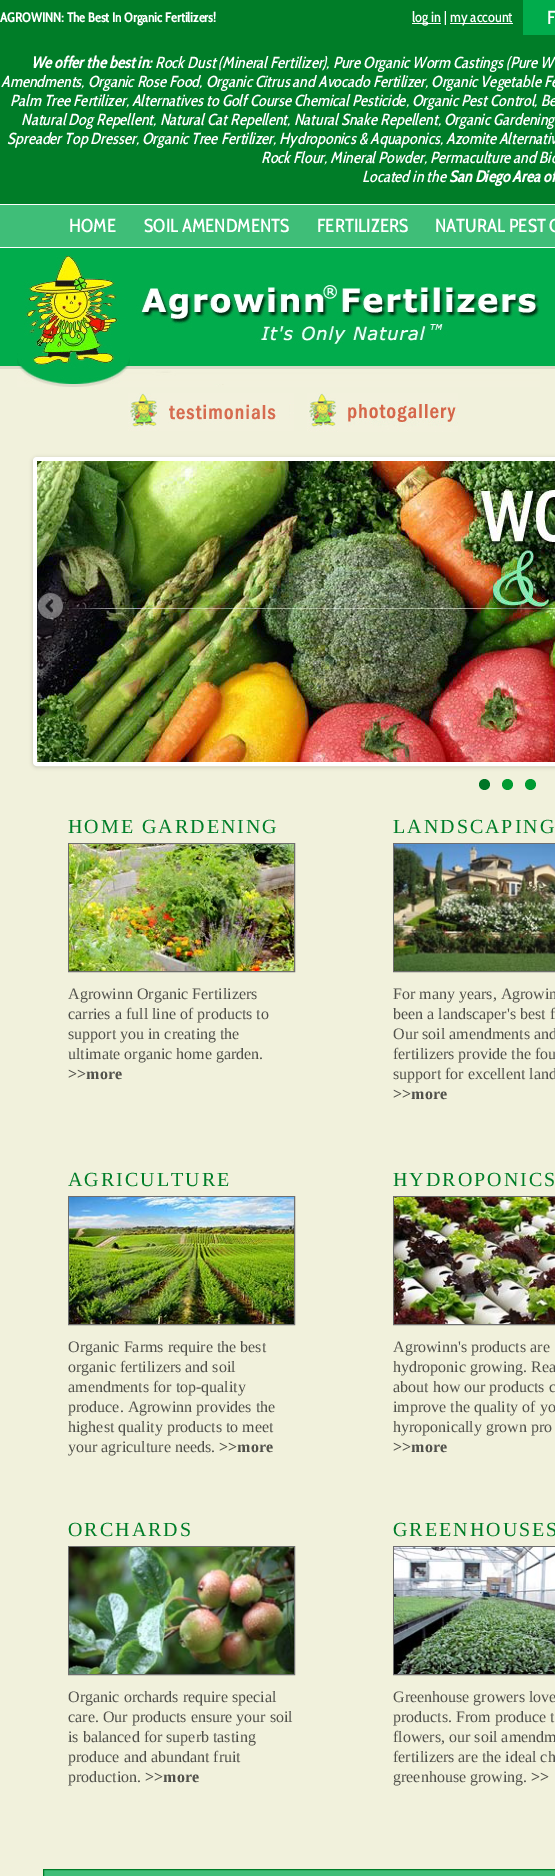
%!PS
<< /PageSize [555 1876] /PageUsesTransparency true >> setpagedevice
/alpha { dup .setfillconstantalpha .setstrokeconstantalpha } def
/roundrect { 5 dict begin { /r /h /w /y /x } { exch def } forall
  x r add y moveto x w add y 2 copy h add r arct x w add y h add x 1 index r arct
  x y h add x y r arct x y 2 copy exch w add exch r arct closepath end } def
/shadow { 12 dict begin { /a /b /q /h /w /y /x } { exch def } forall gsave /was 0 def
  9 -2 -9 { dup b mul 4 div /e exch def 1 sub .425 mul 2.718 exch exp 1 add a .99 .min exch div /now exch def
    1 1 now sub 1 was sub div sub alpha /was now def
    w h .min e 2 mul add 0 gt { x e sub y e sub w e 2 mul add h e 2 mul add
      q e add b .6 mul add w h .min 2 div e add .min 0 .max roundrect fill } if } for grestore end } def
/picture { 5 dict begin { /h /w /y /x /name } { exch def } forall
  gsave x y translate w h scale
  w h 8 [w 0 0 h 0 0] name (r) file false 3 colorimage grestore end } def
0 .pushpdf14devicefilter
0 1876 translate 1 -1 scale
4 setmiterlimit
0.945 0.945 0.863 setrgbcolor
0 0 555 1876 rectfill
0 0.49 0.157 setrgbcolor
0 0 555 204 rectfill
/CabinCondensed-Bold [13.3 0 0 -13.3 0 0] selectfont
1 setgray
0 22 moveto (AGROWINN: The Best In Organic Fertilizers!) show
412 23 29 1 rectfill
/CabinCondensed-Medium [14.5 0 0 -14.5 0 0] selectfont
412 22 moveto (log in |) show
450 23 63 1 rectfill
450 22 moveto (my account) show
0.004 0.675 0.298 setrgbcolor
523 0 32 35 rectfill
/CabinCondensed-Medium [18.75 0 0 -18.75 0 0] selectfont
1 setgray
547 24 moveto (F) show
/CabinCondensed-BoldItalic [16 0 0 -16 0 0] selectfont
31 68 moveto (We offer the best in:) show
/CabinCondensed-MediumItalic [16 0 0 -16 0 0] selectfont
155 68 moveto (Rock Dust \(Mineral Fertilizer\), Pure Organic Worm Castings \(Pure W) show
1 87 moveto (Amendments, Organic Rose Food, Organic Citrus and Avocado Fertilizer, Organic Vegetable Fe) show
10 106 moveto (Palm Tree Fertilizer, Alternatives to Golf Course Chemical Pesticide, Organic Pest Control, Be) show
21 125 moveto (Natural Dog Repellent, Natural Cat Repellent, Natural Snake Repellent, Organic Gardening) show
7 144 moveto (Spreader Top Dresser, Organic Tree Fertilizer, Hydroponics & Aquaponics, Azomite Alternativ) show
261 163 moveto (Rock Flour, Mineral Powder, Permaculture and Bio) show
362 182 moveto (Located in the) show
/CabinCondensed-BoldItalic [16 0 0 -16 0 0] selectfont
449 182 moveto (San Diego Area of) show
0.247 0.745 0.471 setrgbcolor
0 205 555 42 rectfill
1 setgray
0 204 555 1 rectfill
0 247 555 1 rectfill
/CabinCondensed-Medium [18.75 0 0 -18.75 0 0] selectfont
69 232 moveto (HOME) show
144 232 moveto (SOIL AMENDMENTS) show
317 232 moveto (FERTILIZERS) show
435 232 moveto (NATURAL PEST C) show
(img1.rgb) 0 248 555 121 picture
(img2.rgb) 17 256 523 131 picture
(img3.rgb) 128 393 166 38 picture
(img4.rgb) 307 393 151 39 picture
0 setgray
33 458 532 309 4 2 0.2 shadow
1 setgray
4 setlinewidth
35 459 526 305 2 roundrect stroke
(img5.rgb) 37 461 518 301 picture
(img6.rgb) 38 593 25 27 picture
0 0.459 0.149 setrgbcolor
newpath 484.5 784.5 5.5 0 360 arc closepath fill
0 0.608 0.196 setrgbcolor
newpath 507.5 784.5 5.5 0 360 arc closepath fill
newpath 530.5 784.5 5.5 0 360 arc closepath fill
/LiberationSerif-Regular [20 0 0 -20 0 0] selectfont
0 0.49 0.157 setrgbcolor
68 833 moveto 2 0 (HOME GARDENING) ashow
0.431 setgray
1 setlinewidth
68.5 843.5 226 128 rectstroke
(img7.rgb) 69 844 225 127 picture
/LiberationSerif-Regular [16 0 0 -16 0 0] selectfont
0.318 0.318 0.294 setrgbcolor
68 999 moveto (Agrowinn Organic Fertilizers) show
68 1019 moveto (carries a full line of products to) show
68 1039 moveto (support you in creating the) show
68 1059 moveto (ultimate organic home garden.) show
/LiberationSerif-Bold [16 0 0 -16 0 0] selectfont
68 1079 moveto (>>more) show
/LiberationSerif-Regular [20 0 0 -20 0 0] selectfont
0 0.49 0.157 setrgbcolor
393 833 moveto 2 0 (LANDSCAPING) ashow
0.431 setgray
393.5 843.5 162 128 rectstroke
(img8.rgb) 394 844 161 127 picture
/LiberationSerif-Regular [16 0 0 -16 0 0] selectfont
0.318 0.318 0.294 setrgbcolor
393 999 moveto (For many years, Agrowin) show
393 1019 moveto (been a landscaper's best f) show
393 1039 moveto (Our soil amendments and) show
393 1059 moveto (fertilizers provide the fou) show
393 1079 moveto (support for excellent land) show
/LiberationSerif-Bold [16 0 0 -16 0 0] selectfont
393 1099 moveto (>>more) show
/LiberationSerif-Regular [20 0 0 -20 0 0] selectfont
0 0.49 0.157 setrgbcolor
68 1186 moveto 2 0 (AGRICULTURE) ashow
0.431 setgray
68.5 1196.5 226 128 rectstroke
(img9.rgb) 69 1197 225 127 picture
/LiberationSerif-Regular [16 0 0 -16 0 0] selectfont
0.318 0.318 0.294 setrgbcolor
68 1352 moveto (Organic Farms require the best) show
68 1372 moveto (organic fertilizers and soil) show
68 1392 moveto (amendments for top-quality) show
68 1412 moveto (produce. Agrowinn provides the) show
68 1432 moveto (highest quality products to meet) show
68 1452 moveto (your agriculture needs.) show
/LiberationSerif-Bold [16 0 0 -16 0 0] selectfont
219 1452 moveto (>>more) show
/LiberationSerif-Regular [20 0 0 -20 0 0] selectfont
0 0.49 0.157 setrgbcolor
393 1186 moveto 2 0 (HYDROPONICS) ashow
0.431 setgray
393.5 1196.5 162 128 rectstroke
(img10.rgb) 394 1197 161 127 picture
/LiberationSerif-Regular [16 0 0 -16 0 0] selectfont
0.318 0.318 0.294 setrgbcolor
393 1352 moveto (Agrowinn's products are) show
393 1372 moveto (hydroponic growing. Rea) show
393 1392 moveto (about how our products c) show
393 1412 moveto (improve the quality of yo) show
393 1432 moveto (hyroponically grown pro) show
/LiberationSerif-Bold [16 0 0 -16 0 0] selectfont
393 1452 moveto (>>more) show
/LiberationSerif-Regular [20 0 0 -20 0 0] selectfont
0 0.49 0.157 setrgbcolor
68 1536 moveto 2 0 (ORCHARDS) ashow
0.431 setgray
68.5 1546.5 226 128 rectstroke
(img11.rgb) 69 1547 225 127 picture
/LiberationSerif-Regular [16 0 0 -16 0 0] selectfont
0.318 0.318 0.294 setrgbcolor
68 1702 moveto (Organic orchards require special) show
68 1722 moveto (care. Our products ensure your soil) show
68 1742 moveto (is balanced for superb tasting) show
68 1762 moveto (produce and abundant fruit) show
68 1782 moveto (production.) show
/LiberationSerif-Bold [16 0 0 -16 0 0] selectfont
145 1782 moveto (>>more) show
/LiberationSerif-Regular [20 0 0 -20 0 0] selectfont
0 0.49 0.157 setrgbcolor
393 1536 moveto 2 0 (GREENHOUSES) ashow
0.431 setgray
393.5 1546.5 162 128 rectstroke
(img12.rgb) 394 1547 161 127 picture
/LiberationSerif-Regular [16 0 0 -16 0 0] selectfont
0.318 0.318 0.294 setrgbcolor
393 1702 moveto (Greenhouse growers love) show
393 1722 moveto (products. From produce t) show
393 1742 moveto (flowers, our soil amendm) show
393 1762 moveto (fertilizers are the ideal ch) show
393 1782 moveto (greenhouse growing.) show
/LiberationSerif-Bold [16 0 0 -16 0 0] selectfont
531 1782 moveto (>>) show
0.247 0.745 0.471 setrgbcolor
newpath 43.5 1869.5 moveto 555.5 1869.5 lineto 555.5 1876.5 lineto 43.5 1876.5 lineto closepath gsave fill grestore
0 0.49 0.157 setrgbcolor
stroke
.poppdf14devicefilter showpage
